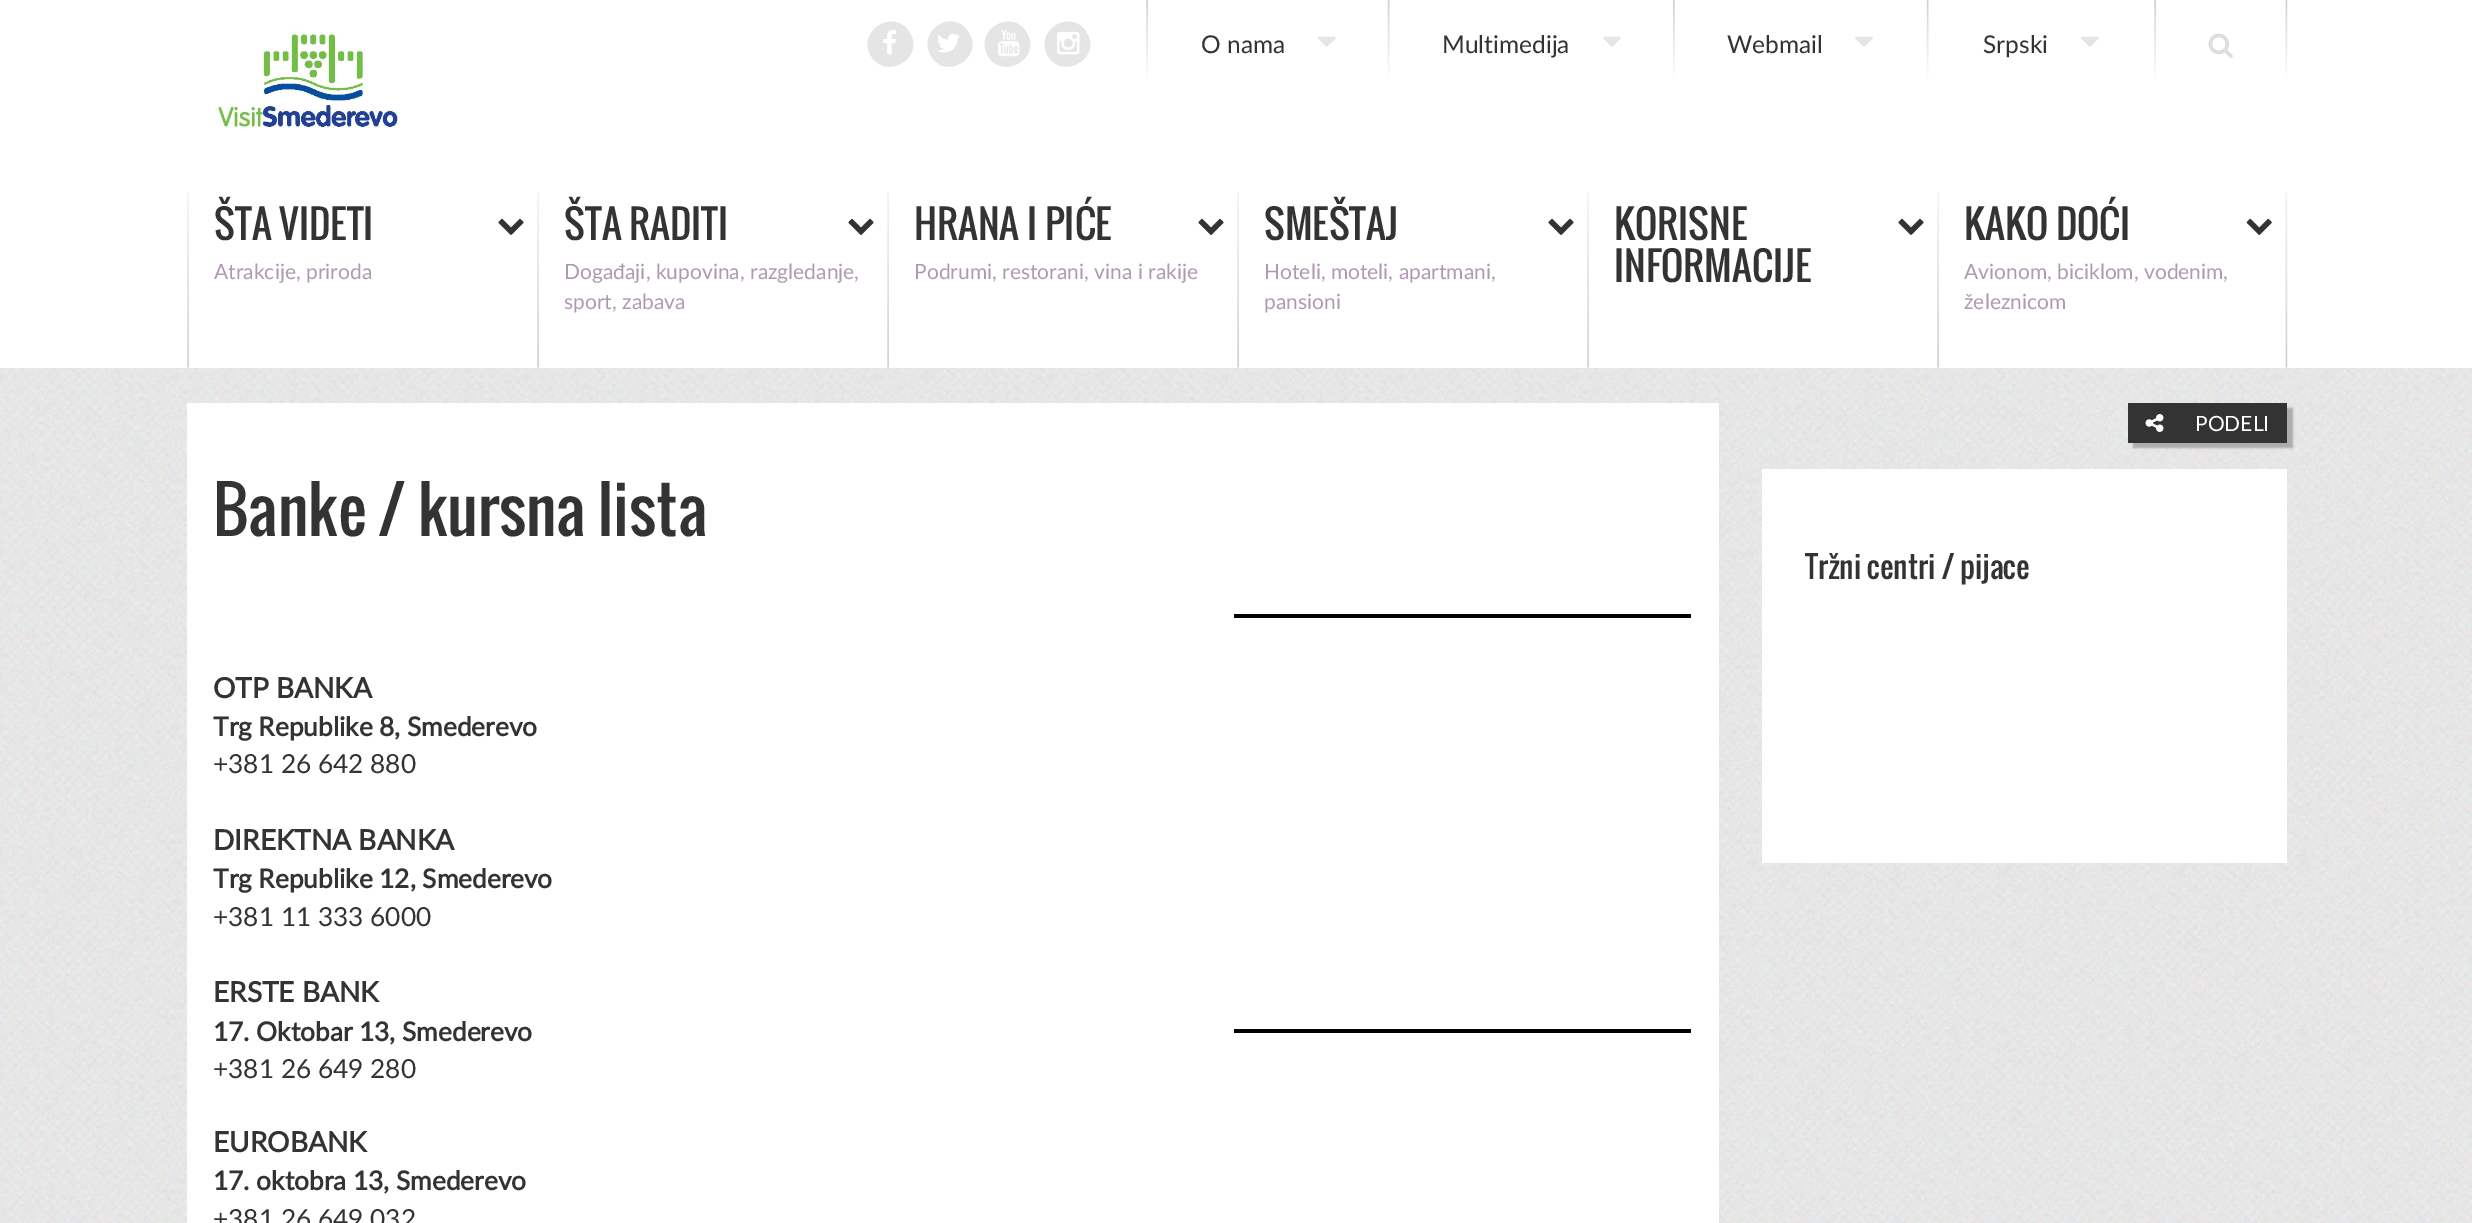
%!PS
<< /PageSize [2472 1223] /PageUsesTransparency true >> setpagedevice
/alpha { dup .setfillconstantalpha .setstrokeconstantalpha } def
/roundrect { 5 dict begin { /r /h /w /y /x } { exch def } forall
  x r add y moveto x w add y 2 copy h add r arct x w add y h add x 1 index r arct
  x y h add x y r arct x y 2 copy exch w add exch r arct closepath end } def
/shadow { 12 dict begin { /a /b /q /h /w /y /x } { exch def } forall gsave /was 0 def
  9 -2 -9 { dup b mul 4 div /e exch def 1 sub .425 mul 2.718 exch exp 1 add a .99 .min exch div /now exch def
    1 1 now sub 1 was sub div sub alpha /was now def
    w h .min e 2 mul add 0 gt { x e sub y e sub w e 2 mul add h e 2 mul add
      q e add b .6 mul add w h .min 2 div e add .min 0 .max roundrect fill } if } for grestore end } def
/picture { 5 dict begin { /h /w /y /x /name } { exch def } forall
  gsave x y translate w h scale
  w h 8 [w 0 0 h 0 0] name (r) file false 3 colorimage grestore end } def
0 .pushpdf14devicefilter
0 1223 translate 1 -1 scale
4 setmiterlimit
1 setgray
0 0 2472 1223 rectfill
(img1.rgb) 0 368 2472 855 picture
(img2.rgb) 217 31 183 97 picture
0.898 setgray
newpath 910 33 moveto 925 58 886 81 871 56 curveto 856 30 895 7 910 33 curveto closepath fill
(img3.rgb) 883 30 13 25 picture
newpath 969 33 moveto 984 58 945 81 931 56 curveto 916 30 954 7 969 33 curveto closepath fill
(img4.rgb) 937 33 23 20 picture
newpath 1027 33 moveto 1042 58 1003 81 988 56 curveto 973 30 1012 7 1027 33 curveto closepath fill
(img5.rgb) 998 30 22 27 picture
newpath 1087 33 moveto 1102 58 1063 81 1048 56 curveto 1033 30 1072 7 1087 33 curveto closepath fill
(img6.rgb) 1057 32 23 23 picture
(img7.rgb) 1146 0 2 78 picture
/Lato-Regular [24.5 0 0 -24.5 0 0] selectfont
0.2 setgray
1201 53 moveto (O nama) show
(img8.rgb) 1318 36 18 11 picture
(img9.rgb) 1387 0 3 79 picture
1442 53 moveto (Multimedija) show
(img10.rgb) 1603 36 18 11 picture
(img11.rgb) 1673 0 2 78 picture
1727 53 moveto (Webmail) show
(img12.rgb) 1855 36 18 11 picture
(img13.rgb) 1926 0 3 78 picture
1983 53 moveto (Srpski) show
(img8.rgb) 2081 36 18 11 picture
(img14.rgb) 2154 0 134 79 picture
(img15.rgb) 2208 33 25 25 picture
(img16.rgb) 187 192 2 176 picture
/Oswald-Regular [38.5 0 0 -38.5 0 0] selectfont
214 240 moveto (ŠTA VIDETI) show
(img17.rgb) 498 218 26 17 picture
/Lato-Regular [21 0 0 -21 0 0] selectfont
0.686 0.6 0.698 setrgbcolor
214 279 moveto (Atrakcije, priroda) show
(img18.rgb) 537 192 2 176 picture
/Oswald-Regular [38.5 0 0 -38.5 0 0] selectfont
0.2 setgray
564 240 moveto (ŠTA RADITI) show
(img17.rgb) 848 218 26 17 picture
/Lato-Regular [21 0 0 -21 0 0] selectfont
0.686 0.6 0.698 setrgbcolor
564 279 moveto (Događaji, kupovina, razgledanje,) show
564 309 moveto (sport, zabava) show
(img18.rgb) 887 192 2 176 picture
/Oswald-Regular [38.5 0 0 -38.5 0 0] selectfont
0.2 setgray
914 240 moveto (HRANA I PIĆE) show
(img17.rgb) 1198 218 26 17 picture
/Lato-Regular [21 0 0 -21 0 0] selectfont
0.686 0.6 0.698 setrgbcolor
914 279 moveto (Podrumi, restorani, vina i rakije) show
(img18.rgb) 1237 192 2 176 picture
/Oswald-Regular [38.5 0 0 -38.5 0 0] selectfont
0.2 setgray
1264 240 moveto (SMEŠTAJ) show
(img17.rgb) 1548 218 26 17 picture
/Lato-Regular [21 0 0 -21 0 0] selectfont
0.686 0.6 0.698 setrgbcolor
1264 279 moveto (Hoteli, moteli, apartmani,) show
1264 309 moveto (pansioni) show
(img19.rgb) 1587 192 2 176 picture
/Oswald-Regular [38.5 0 0 -38.5 0 0] selectfont
0.2 setgray
1614 240 moveto (KORISNE) show
1614 282 moveto (INFORMACIJE) show
(img17.rgb) 1898 218 26 17 picture
(img20.rgb) 1937 192 351 176 picture
1964 240 moveto (KAKO DOĆI) show
(img21.rgb) 2246 218 26 17 picture
/Lato-Regular [21 0 0 -21 0 0] selectfont
0.686 0.6 0.698 setrgbcolor
1964 279 moveto (Avionom, biciklom, vodenim,) show
1964 309 moveto (železnicom) show
1 setgray
187 403 1532 820 rectfill
/Oswald-Regular [63 0 0 -63 0 0] selectfont
0.2 setgray
213 536 moveto (Banke / kursna lista) show
/Lato-Bold [28 0 0 -28 0 0] selectfont
213 698 moveto (OTP BANKA) show
/Lato-Bold [26.25 0 0 -26.25 0 0] selectfont
213 736 moveto (Trg Republike 8, Smederevo) show
/Lato-Regular [26.25 0 0 -26.25 0 0] selectfont
213 773 moveto (+381 26 642 880) show
/Lato-Bold [28 0 0 -28 0 0] selectfont
213 850 moveto (DIREKTNA BANKA) show
/Lato-Bold [26.25 0 0 -26.25 0 0] selectfont
213 888 moveto (Trg Republike 12, Smederevo) show
/Lato-Regular [26.25 0 0 -26.25 0 0] selectfont
213 926 moveto (+381 11 333 6000) show
/Lato-Bold [28 0 0 -28 0 0] selectfont
213 1002 moveto (ERSTE BANK) show
/Lato-Bold [26.25 0 0 -26.25 0 0] selectfont
213 1041 moveto (17. Oktobar 13, Smederevo) show
/Lato-Regular [26.25 0 0 -26.25 0 0] selectfont
213 1078 moveto (+381 26 649 280) show
/Lato-Bold [28 0 0 -28 0 0] selectfont
213 1152 moveto (EUROBANK) show
/Lato-Bold [26.25 0 0 -26.25 0 0] selectfont
213 1190 moveto (17. oktobra 13, Smederevo) show
/Lato-Regular [26.25 0 0 -26.25 0 0] selectfont
213 1228 moveto (+381 26 649 032) show
0 setgray
1234 614 457 4 rectfill
1234 1029 457 4 rectfill
0.671 0.663 0.671 setrgbcolor
2133 408 160 40 0 1 1 shadow
0.2 setgray
2128 403 159 40 rectfill
(img22.rgb) 2145 414 19 18 picture
/Lato-Regular [21 0 0 -21 0 0] selectfont
1 setgray
2195 431 moveto (PODELI) show
1762 469 525 394 rectfill
/Oswald-Regular [29.75 0 0 -29.75 0 0] selectfont
0.2 setgray
1805 579 moveto (Tržni centri / pijace) show
.poppdf14devicefilter showpage
